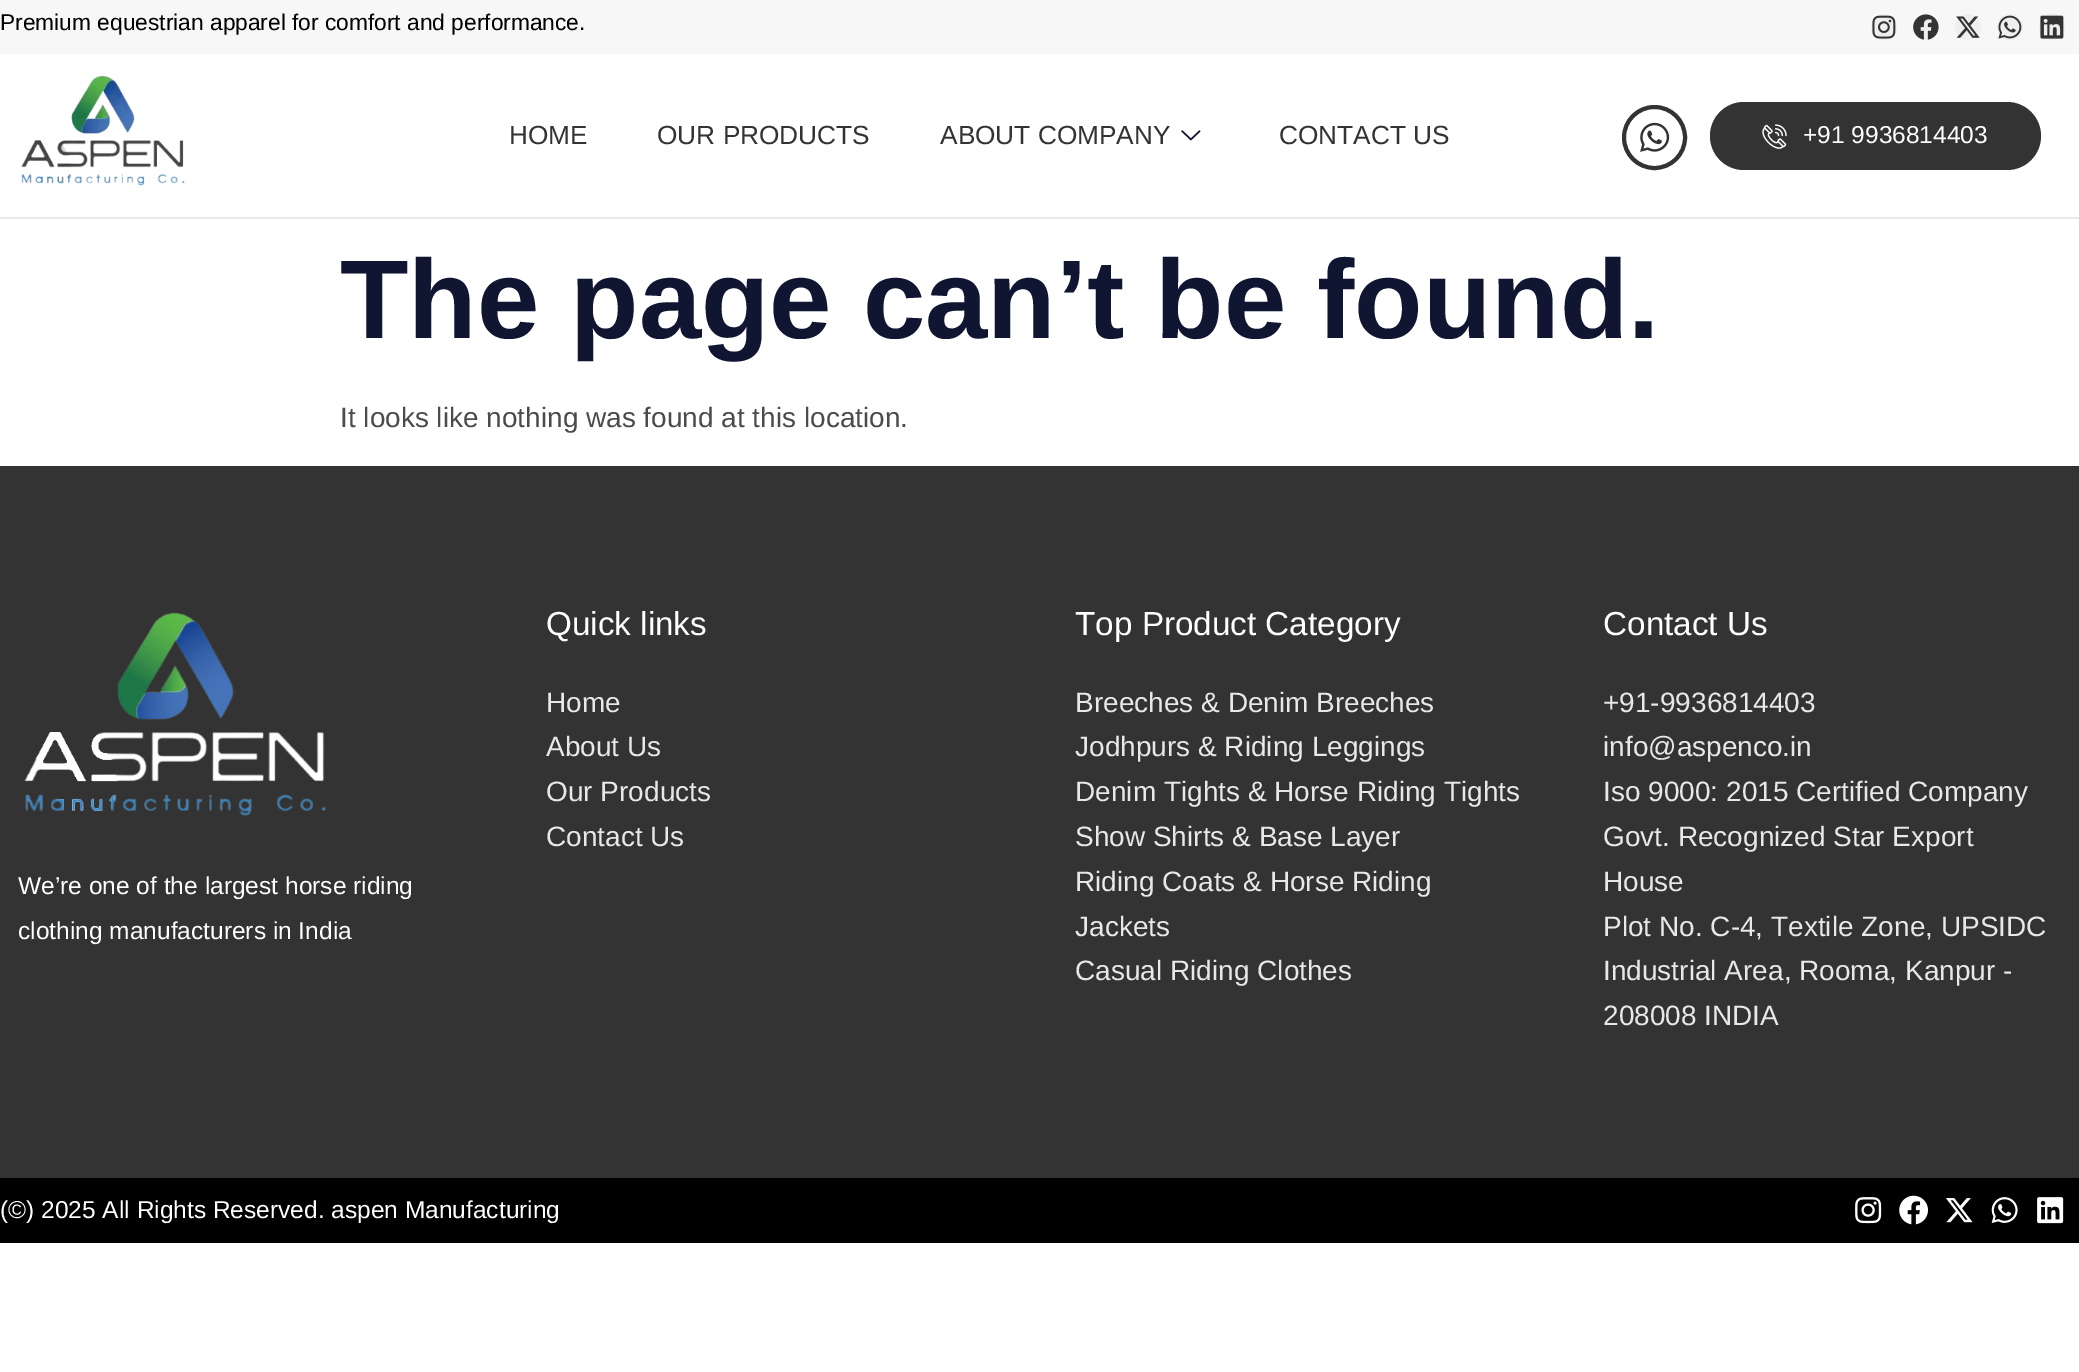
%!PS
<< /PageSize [2079 1372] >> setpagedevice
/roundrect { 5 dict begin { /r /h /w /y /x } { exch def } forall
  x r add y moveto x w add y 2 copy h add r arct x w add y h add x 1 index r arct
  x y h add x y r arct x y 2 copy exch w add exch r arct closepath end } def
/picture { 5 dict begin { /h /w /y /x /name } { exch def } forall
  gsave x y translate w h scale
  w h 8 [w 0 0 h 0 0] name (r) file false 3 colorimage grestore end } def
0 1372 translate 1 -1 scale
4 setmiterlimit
1 setgray
0 0 2079 1372 rectfill
0.969 setgray
0 0 2079 54 rectfill
/LiberationSans-Regular [22.75 0 0 -22.75 0 0] selectfont
0 setgray
0 30 moveto (Premium equestrian apparel for comfort and performance.) show
0.933 setgray
newpath 1884 27 13 0 360 arc closepath fill
(img1.rgb) 1872 15 24 24 picture
newpath 1926 27 13 0 360 arc closepath fill
(img2.rgb) 1913 14 26 26 picture
newpath 1968 27 13 0 360 arc closepath fill
(img3.rgb) 1956 16 24 22 picture
newpath 2010 27 13 0 360 arc closepath fill
(img4.rgb) 1998 15 24 24 picture
newpath 2052 27 13 0 360 arc closepath fill
(img5.rgb) 2040 15 24 24 picture
0.91 setgray
0 217 2079 2 rectfill
(img6.rgb) 21 75 164 111 picture
/LiberationSans-Regular [26.25 0 0 -26.25 0 0] selectfont
0.2 setgray
509 144 moveto (HOME) show
657 144 moveto (OUR PRODUCTS) show
940 144 moveto (ABOUT COMPANY) show
(img7.rgb) 1181 130 20 11 picture
1279 144 moveto (CONTACT US) show
4 setlinewidth
newpath 1654.5 137.5 30.5 0 360 arc closepath stroke
(img8.rgb) 1640 122 30 30 picture
1710 102 331 68 34 roundrect fill
(img9.rgb) 1762 124 25 25 picture
/LiberationSans-Regular [24.5 0 0 -24.5 0 0] selectfont
1 setgray
1803 143 moveto (+91 9936814403) show
/LiberationSans-Bold [112 0 0 -112 0 0] selectfont
0.063 0.086 0.192 setrgbcolor
340 338 moveto (The page can’t be found.) show
/LiberationSans-Regular [28 0 0 -28 0 0] selectfont
0.294 setgray
340 427 moveto (It looks like nothing was found at this location.) show
0.2 setgray
0 466 2079 712 rectfill
(img10.rgb) 24 612 302 204 picture
/LiberationSans-Regular [24.5 0 0 -24.5 0 0] selectfont
1 setgray
18 894 moveto (We’re one of the largest horse riding) show
18 939 moveto (clothing manufacturers in India) show
/LiberationSans-Regular [33.25 0 0 -33.25 0 0] selectfont
546 635 moveto (Quick links) show
/LiberationSans-Regular [28 0 0 -28 0 0] selectfont
0.91 setgray
546 712 moveto (Home) show
546 756 moveto (About Us) show
546 801 moveto (Our Products) show
546 846 moveto (Contact Us) show
/LiberationSans-Regular [33.25 0 0 -33.25 0 0] selectfont
1 setgray
1075 635 moveto (Top Product Category) show
/LiberationSans-Regular [28 0 0 -28 0 0] selectfont
0.91 setgray
1075 712 moveto (Breeches & Denim Breeches) show
1075 756 moveto (Jodhpurs & Riding Leggings) show
1075 801 moveto (Denim Tights & Horse Riding Tights) show
1075 846 moveto (Show Shirts & Base Layer) show
1075 891 moveto (Riding Coats & Horse Riding) show
1075 936 moveto (Jackets) show
1075 980 moveto (Casual Riding Clothes) show
/LiberationSans-Regular [33.25 0 0 -33.25 0 0] selectfont
1 setgray
1603 635 moveto (Contact Us) show
/LiberationSans-Regular [28 0 0 -28 0 0] selectfont
0.91 setgray
1603 712 moveto (+91-9936814403) show
1603 756 moveto (info@aspenco.in) show
1603 801 moveto (Iso 9000: 2015 Certified Company) show
1603 846 moveto (Govt. Recognized Star Export) show
1603 891 moveto (House) show
1603 936 moveto (Plot No. C-4, Textile Zone, UPSIDC) show
1603 980 moveto (Industrial Area, Rooma, Kanpur -) show
1603 1025 moveto (208008 INDIA) show
0 setgray
0 1178 2079 65 rectfill
/LiberationSans-Regular [24.5 0 0 -24.5 0 0] selectfont
1 setgray
0 1218 moveto (\(©\) 2025 All Rights Reserved. aspen Manufacturing) show
(img11.rgb) 1855 1197 27 27 picture
(img12.rgb) 1899 1195 29 30 picture
(img13.rgb) 1946 1198 27 25 picture
(img14.rgb) 1991 1197 27 27 picture
(img15.rgb) 2037 1197 27 27 picture
showpage
